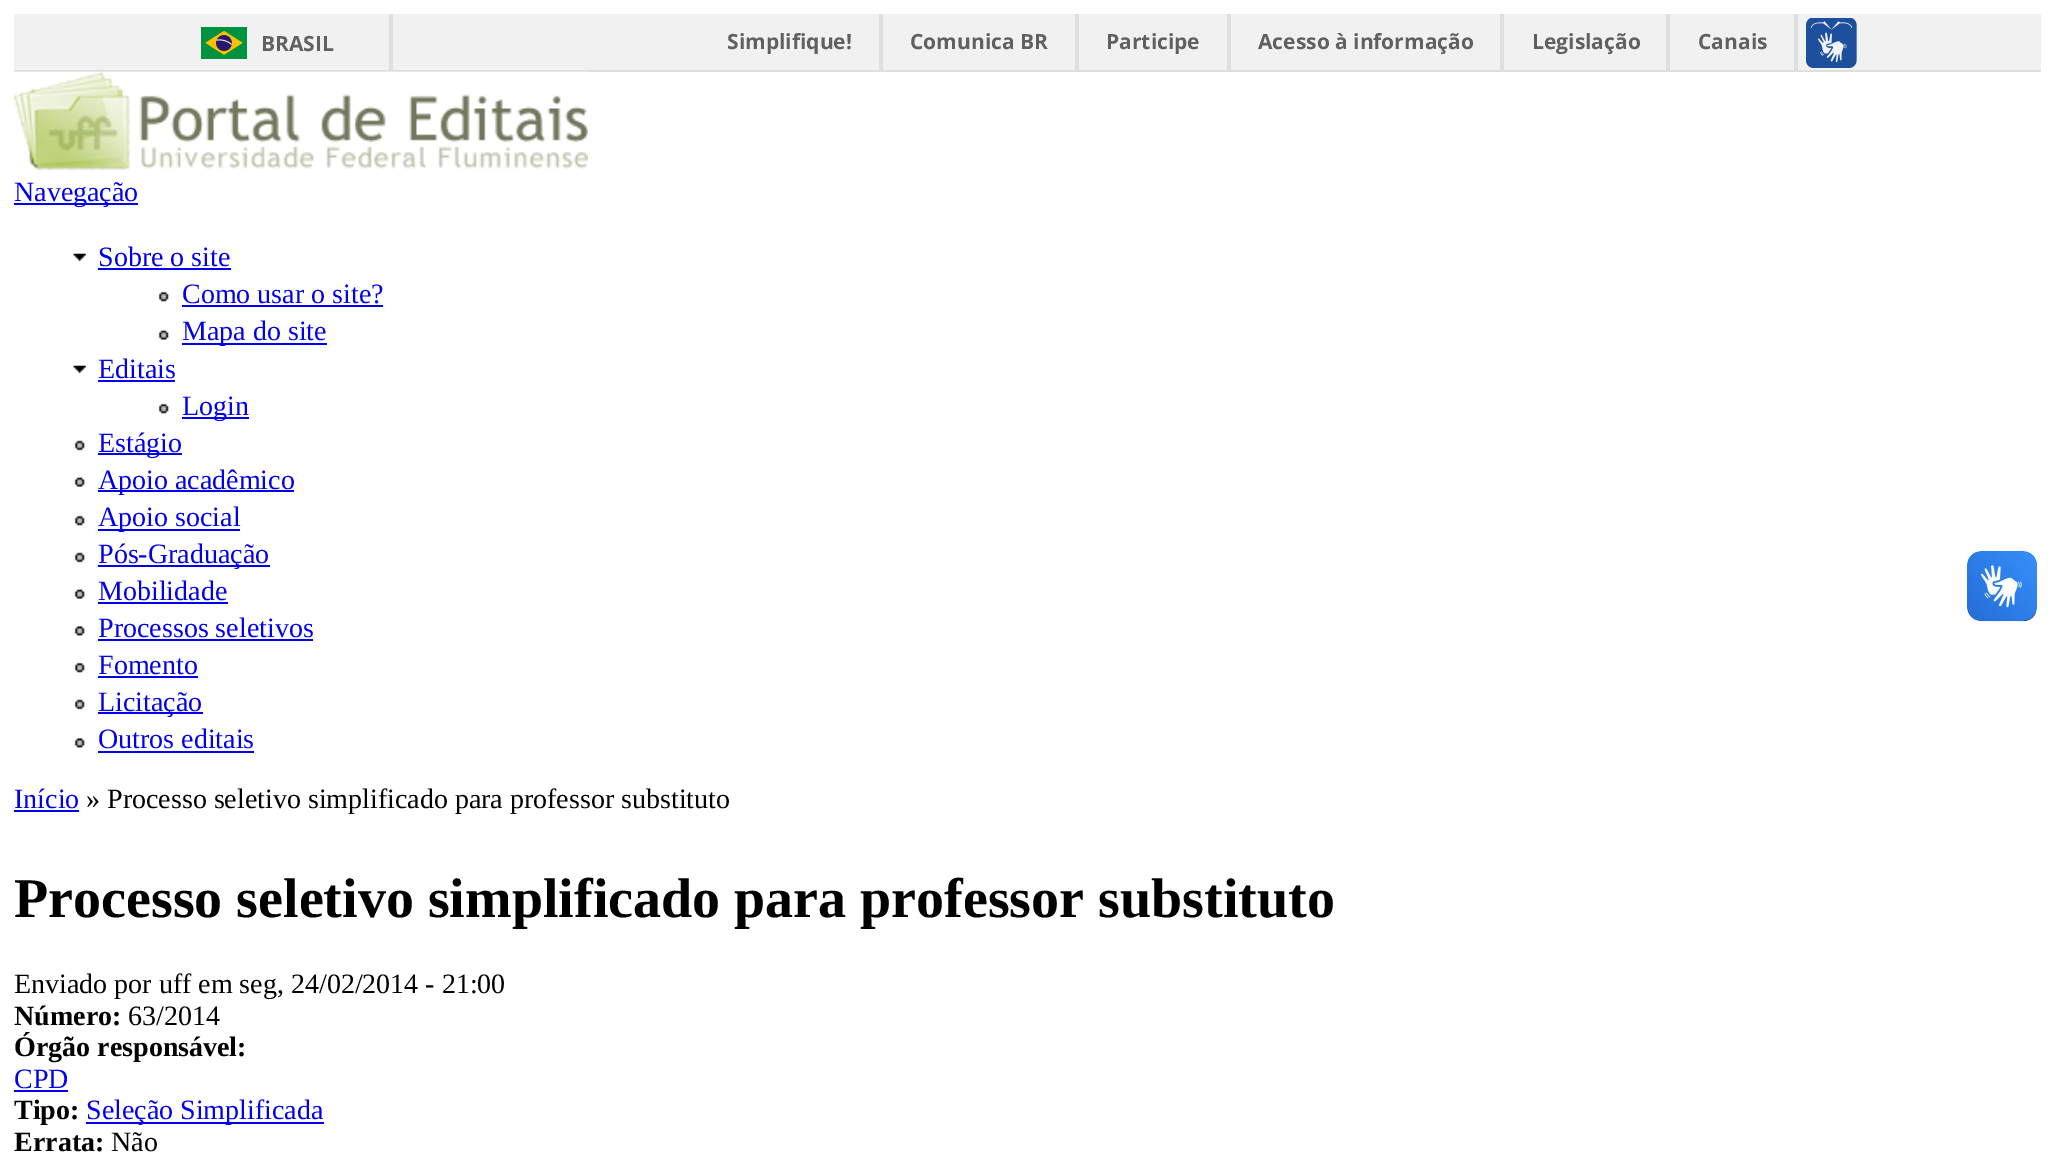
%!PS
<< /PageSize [2053 1172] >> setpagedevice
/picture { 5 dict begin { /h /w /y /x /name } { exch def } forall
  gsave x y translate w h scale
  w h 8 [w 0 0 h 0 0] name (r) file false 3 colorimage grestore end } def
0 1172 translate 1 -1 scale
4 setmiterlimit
1 setgray
0 0 2053 1172 rectfill
0.945 setgray
14 14 2027 56 rectfill
0.875 setgray
14 70 2027 2 rectfill
389 14 4 56 rectfill
(img1.rgb) 201 27 46 32 picture
/OpenSans-Bold [21 0 0 -21 0 0] selectfont
0.376 setgray
261 51 moveto (BRASIL) show
0.875 setgray
879 14 4 56 rectfill
0.376 setgray
727 49 moveto (Simplifique!) show
0.875 setgray
1075 14 4 56 rectfill
0.376 setgray
910 49 moveto (Comunica BR) show
0.875 setgray
1227 14 4 56 rectfill
0.376 setgray
1106 49 moveto (Participe) show
0.875 setgray
1500 14 4 56 rectfill
0.376 setgray
1258 49 moveto (Acesso à informação) show
0.875 setgray
1666 14 4 56 rectfill
0.376 setgray
1532 49 moveto (Legislação) show
0.875 setgray
1794 14 4 56 rectfill
0.376 setgray
1698 49 moveto (Canais) show
(img2.rgb) 1806 18 51 50 picture
(img3.rgb) 14 71 574 99 picture
0 0 0.933 setrgbcolor
14 203 124 2 rectfill
/LiberationSerif-Regular [28 0 0 -28 0 0] selectfont
14 201 moveto (Navegação) show
(img4.rgb) 73 253 13 9 picture
98 266 moveto (Sobre o site) show
98 268 133 2 rectfill
(img5.rgb) 158 291 11 11 picture
182 303 moveto (Como usar o site?) show
182 305 201 2 rectfill
(img6.rgb) 158 330 11 10 picture
182 343 145 2 rectfill
182 340 moveto (Mapa do site) show
(img4.rgb) 73 365 13 9 picture
98 378 moveto (Editais) show
98 380 77 2 rectfill
(img5.rgb) 158 403 11 11 picture
182 417 67 2 rectfill
182 415 moveto (Login) show
(img7.rgb) 74 440 11 11 picture
98 453 84 2 rectfill
98 452 moveto (Estágio) show
(img8.rgb) 74 477 11 10 picture
98 490 196 2 rectfill
98 489 moveto (Apoio acadêmico) show
(img9.rgb) 74 515 11 11 picture
98 529 142 2 rectfill
98 526 moveto (Apoio social) show
(img7.rgb) 74 552 11 11 picture
98 565 172 2 rectfill
98 563 moveto (Pós-Graduação) show
(img8.rgb) 74 589 11 10 picture
98 600 moveto (Mobilidade) show
98 602 130 2 rectfill
(img10.rgb) 74 626 11 10 picture
98 637 moveto (Processos seletivos) show
98 639 215 2 rectfill
(img9.rgb) 74 662 11 11 picture
98 674 moveto (Fomento) show
98 676 100 2 rectfill
(img7.rgb) 74 699 11 11 picture
98 712 105 2 rectfill
98 711 moveto (Licitação) show
(img10.rgb) 74 738 11 10 picture
98 748 moveto (Outros editais) show
98 751 156 2 rectfill
14 808 moveto (Início) show
14 810 65 2 rectfill
0 setgray
86 808 moveto (» Processo seletivo simplificado para professor substituto) show
/LiberationSerif-Bold [56 0 0 -56 0 0] selectfont
14 917 moveto (Processo seletivo simplificado para professor substituto) show
/LiberationSerif-Regular [28 0 0 -28 0 0] selectfont
14 993 moveto (Enviado por uff em seg, 24/02/2014 - 21:00) show
/LiberationSerif-Bold [28 0 0 -28 0 0] selectfont
14 1025 moveto (Número:) show
/LiberationSerif-Regular [28 0 0 -28 0 0] selectfont
128 1025 moveto (63/2014) show
/LiberationSerif-Bold [28 0 0 -28 0 0] selectfont
14 1056 moveto (Órgão responsável:) show
/LiberationSerif-Regular [28 0 0 -28 0 0] selectfont
0 0 0.933 setrgbcolor
14 1088 moveto (CPD) show
14 1090 54 2 rectfill
/LiberationSerif-Bold [28 0 0 -28 0 0] selectfont
0 setgray
14 1119 moveto (Tipo:) show
0 0 0.933 setrgbcolor
86 1122 238 2 rectfill
/LiberationSerif-Regular [28 0 0 -28 0 0] selectfont
86 1119 moveto (Seleção Simplificada) show
/LiberationSerif-Bold [28 0 0 -28 0 0] selectfont
0 setgray
14 1151 moveto (Errata:) show
/LiberationSerif-Regular [28 0 0 -28 0 0] selectfont
111 1151 moveto (Não) show
(img11.rgb) 1967 551 70 71 picture
(img12.rgb) 1967 551 70 70 picture
showpage
